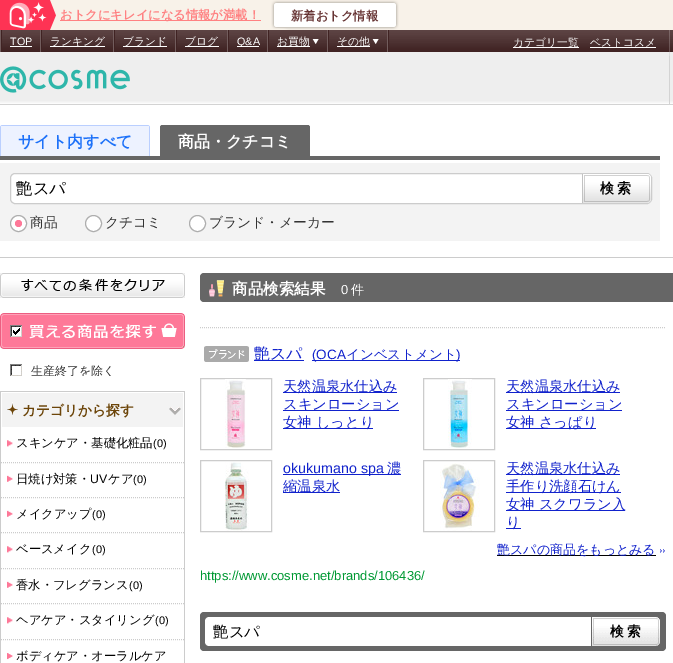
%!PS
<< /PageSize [673 663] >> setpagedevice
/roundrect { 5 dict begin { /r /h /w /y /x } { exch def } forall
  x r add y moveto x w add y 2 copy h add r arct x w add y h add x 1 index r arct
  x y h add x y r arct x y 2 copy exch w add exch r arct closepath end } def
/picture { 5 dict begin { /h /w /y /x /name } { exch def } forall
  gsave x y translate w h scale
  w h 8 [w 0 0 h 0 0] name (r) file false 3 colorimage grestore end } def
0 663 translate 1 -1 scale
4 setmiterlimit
1 setgray
0 0 673 663 rectfill
0.973 0.949 0.914 setrgbcolor
50 0 623 30 rectfill
(img1.rgb) 0 0 56 30 picture
1 0.506 0.51 setrgbcolor
60 20 201 1 rectfill
/WenQuanYiZenHei-Bold [12.3 0 0 -12.3 0 0] selectfont
60 19 moveto (おトクにキレイになる情報が満載！) show
(img2.rgb) 271 0 128 30 picture
0.4 0.2 0.2 setrgbcolor
291 20 moveto (新着おトク情報) show
(img3.rgb) 0 30 673 75 picture
(img4.rgb) 669 30 1 74 picture
0.251 0.137 0.137 setrgbcolor
388 30 1 22 rectfill
0.447 0.365 0.365 setrgbcolor
0 30 1 22 rectfill
40 30 1 22 rectfill
0.251 0.137 0.137 setrgbcolor
1 30 1 22 rectfill
/LiberationSans-Regular [10.75 0 0 -10.75 0 0] selectfont
1 setgray
10 45 moveto (TOP) show
10 46 22 1 rectfill
0.447 0.365 0.365 setrgbcolor
113 30 1 22 rectfill
0.251 0.137 0.137 setrgbcolor
41 30 1 22 rectfill
1 setgray
50 46 55 1 rectfill
/WenQuanYiZenHei-Medium [10.75 0 0 -10.75 0 0] selectfont
50 45 moveto (ランキング) show
0.447 0.365 0.365 setrgbcolor
175 30 1 22 rectfill
0.251 0.137 0.137 setrgbcolor
114 30 1 22 rectfill
1 setgray
123 46 44 1 rectfill
123 45 moveto (ブランド) show
0.447 0.365 0.365 setrgbcolor
227 30 1 22 rectfill
0.251 0.137 0.137 setrgbcolor
176 30 1 22 rectfill
1 setgray
185 46 34 1 rectfill
185 45 moveto (ブログ) show
0.447 0.365 0.365 setrgbcolor
267 30 1 22 rectfill
0.251 0.137 0.137 setrgbcolor
228 30 1 22 rectfill
1 setgray
237 46 22 1 rectfill
/LiberationSans-Regular [10.75 0 0 -10.75 0 0] selectfont
237 45 moveto (Q&A) show
0.447 0.365 0.365 setrgbcolor
327 30 1 22 rectfill
0.251 0.137 0.137 setrgbcolor
268 30 1 22 rectfill
1 setgray
277 46 33 1 rectfill
/WenQuanYiZenHei-Medium [10.75 0 0 -10.75 0 0] selectfont
277 45 moveto (お買物) show
(img5.rgb) 312 39 7 5 picture
0.447 0.365 0.365 setrgbcolor
387 30 1 22 rectfill
0.251 0.137 0.137 setrgbcolor
328 30 1 22 rectfill
1 setgray
337 46 33 1 rectfill
337 45 moveto (その他) show
(img5.rgb) 372 39 7 5 picture
513 47 66 1 rectfill
513 46 moveto (カテゴリ一覧) show
590 47 66 1 rectfill
590 46 moveto (ベストコスメ) show
(img6.rgb) 0 66 130 27 picture
0.8 setgray
0 257 673 1 rectfill
0.4 setgray
0 156 660 4 rectfill
0.729 0.812 1 setrgbcolor
newpath 3 125 moveto 147 125 lineto 149 125 150 126 150 128 curveto 150 156 lineto 0 156 lineto 0 128 lineto 0 126 1 125 3 125 curveto closepath 3 126 moveto 147 126 lineto 148 126 149 127 149 128 curveto 149 156 lineto 1 156 lineto 1 128 lineto 1 127 2 126 3 126 curveto closepath eofill
0.929 0.949 1 setrgbcolor
1 126 148 30 rectfill
/WenQuanYiZenHei-Bold [16 0 0 -16 0 0] selectfont
0.114 0.443 0.976 setrgbcolor
18 147 moveto (サイト内すべて) show
0.4 setgray
newpath 163 125 moveto 307 125 lineto 308.5 125 310 126.5 310 128 curveto 310 156 lineto 160 156 lineto 160 128 lineto 160 126.5 161.5 125 163 125 curveto closepath fill
newpath 163 125 moveto 307 125 lineto 309 125 310 126 310 128 curveto 310 156 lineto 160 156 lineto 160 128 lineto 160 126 161 125 163 125 curveto closepath 163 126 moveto 307 126 lineto 308 126 309 127 309 128 curveto 309 156 lineto 161 156 lineto 161 128 lineto 161 127 162 126 163 126 curveto closepath eofill
1 setgray
178 147 moveto (商品・クチコミ) show
0.953 setgray
0 163 660 78 rectfill
1 setgray
10.5 173.5 641 30 4.5 roundrect gsave fill grestore
0.8 setgray
stroke
/WenQuanYiZenHei-Medium [16.5 0 0 -16.5 0 0] selectfont
0 setgray
16 194 moveto (艶スパ) show
(img7.rgb) 582 174 69 29 picture
/WenQuanYiZenHei-Bold [14 0 0 -14 0 0] selectfont
600 193 moveto 3 0 (検索) ashow
1 setgray
newpath 18.5 223.5 8 0 360 arc closepath gsave fill grestore
0.682 setgray
stroke
/WenQuanYiZenHei-Medium [13.75 0 0 -13.75 0 0] selectfont
0.2 setgray
30 227 moveto (商品) show
0.996 0.471 0.596 setrgbcolor
newpath 18.5 223.5 3.5 0 360 arc closepath fill
1 setgray
newpath 93.5 223.5 8 0 360 arc closepath gsave fill grestore
0.682 setgray
stroke
0.2 setgray
105 227 moveto (クチコミ) show
1 setgray
newpath 197.5 223.5 8 0 360 arc closepath gsave fill grestore
0.682 setgray
stroke
0.2 setgray
209 227 moveto (ブランド・メーカー) show
0.937 setgray
0 273 185 25 rectfill
(img8.rgb) 0 273 185 25 picture
(img9.rgb) 0 313 185 36 picture
(img10.rgb) 10 364 12 12 picture
gsave
10 364 175 12 rectclip
/WenQuanYiZenHei-Medium [12 0 0 -12 0 0] selectfont
0.2 setgray
31 375 moveto (生産終了を除く) show
grestore
0.8 setgray
0 391 185 1 rectfill
184 392 1 271 rectfill
0 392 1 271 rectfill
0.953 setgray
2 393 181 34 rectfill
(img11.rgb) 7 402 11 13 picture
(img12.rgb) 169 407 12 8 picture
/WenQuanYiZenHei-Bold [13.75 0 0 -13.75 0 0] selectfont
0.424 0.271 0.035 setrgbcolor
22 415 moveto (カテゴリから探す) show
(img13.rgb) 7 440 6 7 picture
/WenQuanYiZenHei-Medium [12.3 0 0 -12.3 0 0] selectfont
0 setgray
16 447 moveto (スキンケア・基礎化粧品) show
/LiberationSans-Regular [11 0 0 -11 0 0] selectfont
153 447 moveto (\(0\)) show
0.8 setgray
[1 1] 0 setdash
newpath 1 462.5 moveto 184 462.5 lineto stroke
(img14.rgb) 7 475 6 7 picture
/WenQuanYiZenHei-Medium [12.3 0 0 -12.3 0 0] selectfont
0 setgray
16 483 moveto (日焼け対策・) show
/LiberationSans-Regular [12.3 0 0 -12.3 0 0] selectfont
90 483 moveto (UV) show
/WenQuanYiZenHei-Medium [12.3 0 0 -12.3 0 0] selectfont
108 483 moveto (ケア) show
/LiberationSans-Regular [11 0 0 -11 0 0] selectfont
133 483 moveto (\(0\)) show
0.8 setgray
newpath 1 497.5 moveto 184 497.5 lineto stroke
(img14.rgb) 7 510 6 7 picture
/WenQuanYiZenHei-Medium [12.3 0 0 -12.3 0 0] selectfont
0 setgray
16 518 moveto (メイクアップ) show
/LiberationSans-Regular [11 0 0 -11 0 0] selectfont
92 518 moveto (\(0\)) show
0.8 setgray
newpath 1 532.5 moveto 184 532.5 lineto stroke
(img13.rgb) 7 546 6 7 picture
/WenQuanYiZenHei-Medium [12.3 0 0 -12.3 0 0] selectfont
0 setgray
16 553 moveto (ベースメイク) show
/LiberationSans-Regular [11 0 0 -11 0 0] selectfont
92 553 moveto (\(0\)) show
0.8 setgray
newpath 1 568.5 moveto 184 568.5 lineto stroke
(img14.rgb) 7 581 6 7 picture
/WenQuanYiZenHei-Medium [12.3 0 0 -12.3 0 0] selectfont
0 setgray
16 589 moveto (香水・フレグランス) show
/LiberationSans-Regular [11 0 0 -11 0 0] selectfont
129 589 moveto (\(0\)) show
0.8 setgray
newpath 1 603.5 moveto 184 603.5 lineto stroke
(img13.rgb) 7 617 6 7 picture
/WenQuanYiZenHei-Medium [12.3 0 0 -12.3 0 0] selectfont
0 setgray
16 624 moveto (ヘアケア・スタイリング) show
/LiberationSans-Regular [11 0 0 -11 0 0] selectfont
155 624 moveto (\(0\)) show
0.8 setgray
newpath 1 639.5 moveto 184 639.5 lineto stroke
(img15.rgb) 7 653 6 7 picture
/WenQuanYiZenHei-Medium [12.3 0 0 -12.3 0 0] selectfont
0 setgray
16 660 moveto (ボディケア・オーラルケア) show
0.4 setgray
200 273 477 29 4 roundrect fill
(img16.rgb) 209 280 15 17 picture
/WenQuanYiZenHei-Bold [15.5 0 0 -15.5 0 0] selectfont
1 setgray
232 294 moveto (商品検索結果) show
/LiberationSans-Regular [13 0 0 -13 0 0] selectfont
341 294 moveto (0) show
/WenQuanYiZenHei-Medium [13 0 0 -13 0 0] selectfont
351 294 moveto (件) show
0.8 setgray
newpath 200 327.5 moveto 666 327.5 lineto stroke
(img17.rgb) 204 346 45 16 picture
0.067 0.133 0.8 setrgbcolor
254 360 50 1 rectfill
/WenQuanYiZenHei-Medium [16 0 0 -16 0 0] selectfont
254 359 moveto (艶スパ) show
312 360 148 1 rectfill
/LiberationSans-Regular [13.5 0 0 -13.5 0 0] selectfont
312 359 moveto (\(OCA) show
/WenQuanYiZenHei-Medium [13.5 0 0 -13.5 0 0] selectfont
346 359 moveto (インベストメント) show
/LiberationSans-Regular [13.5 0 0 -13.5 0 0] selectfont
456 359 moveto (\)) show
0.8 setgray
[] 0 setdash
200.5 378.5 71 71 rectstroke
(img18.rgb) 225 379 21 69 picture
0.067 0.133 0.8 setrgbcolor
283 392 114 1 rectfill
/WenQuanYiZenHei-Medium [14.25 0 0 -14.25 0 0] selectfont
283 391 moveto (天然温泉水仕込み) show
283 410 116 1 rectfill
283 409 moveto (スキンローション) show
283 428 90 1 rectfill
283 427 moveto (女神 しっとり) show
0.8 setgray
423.5 378.5 71 71 rectstroke
(img19.rgb) 448 379 24 69 picture
0.067 0.133 0.8 setrgbcolor
506 392 114 1 rectfill
506 391 moveto (天然温泉水仕込み) show
506 410 116 1 rectfill
506 409 moveto (スキンローション) show
506 428 90 1 rectfill
506 427 moveto (女神 さっぱり) show
0.8 setgray
200.5 460.5 71 71 rectstroke
(img20.rgb) 225 462 24 69 picture
0.067 0.133 0.8 setrgbcolor
283 474 118 1 rectfill
/LiberationSans-Regular [14.25 0 0 -14.25 0 0] selectfont
283 473 moveto (okukumano spa) show
/WenQuanYiZenHei-Medium [14.25 0 0 -14.25 0 0] selectfont
387 473 moveto (濃) show
283 492 57 1 rectfill
283 491 moveto (縮温泉水) show
0.8 setgray
423.5 460.5 71 71 rectstroke
(img21.rgb) 440 463 40 68 picture
0.067 0.133 0.8 setrgbcolor
506 474 114 1 rectfill
506 473 moveto (天然温泉水仕込み) show
506 492 115 1 rectfill
506 491 moveto (手作り洗顔石けん) show
506 510 119 1 rectfill
506 509 moveto (女神 スクワラン入) show
506 528 15 1 rectfill
506 527 moveto (り) show
(img22.rgb) 660 549 5 4 picture
0 setgray
497 555 159 1 rectfill
/WenQuanYiZenHei-Medium [13 0 0 -13 0 0] selectfont
0.067 0.133 0.8 setrgbcolor
497 554 moveto (艶スパの商品をもっとみる) show
/LiberationSans-Regular [13 0 0 -13 0 0] selectfont
0 0.6 0.2 setrgbcolor
200 580 moveto (https://www.cosme.net/brands/106436/) show
0.4 setgray
200 612 466 39 4 roundrect fill
1 setgray
newpath 209 617 moveto 591 617 lineto 591 646 lineto 209 646 lineto 207 646 205 644 205 642 curveto 205 621 lineto 205 619 207 617 209 617 curveto closepath fill
/WenQuanYiZenHei-Medium [15.5 0 0 -15.5 0 0] selectfont
0 setgray
213 637 moveto (艶スパ) show
(img23.rgb) 592 617 68 29 picture
/WenQuanYiZenHei-Bold [13.75 0 0 -13.75 0 0] selectfont
610 636 moveto 3 0 (検索) ashow
showpage
